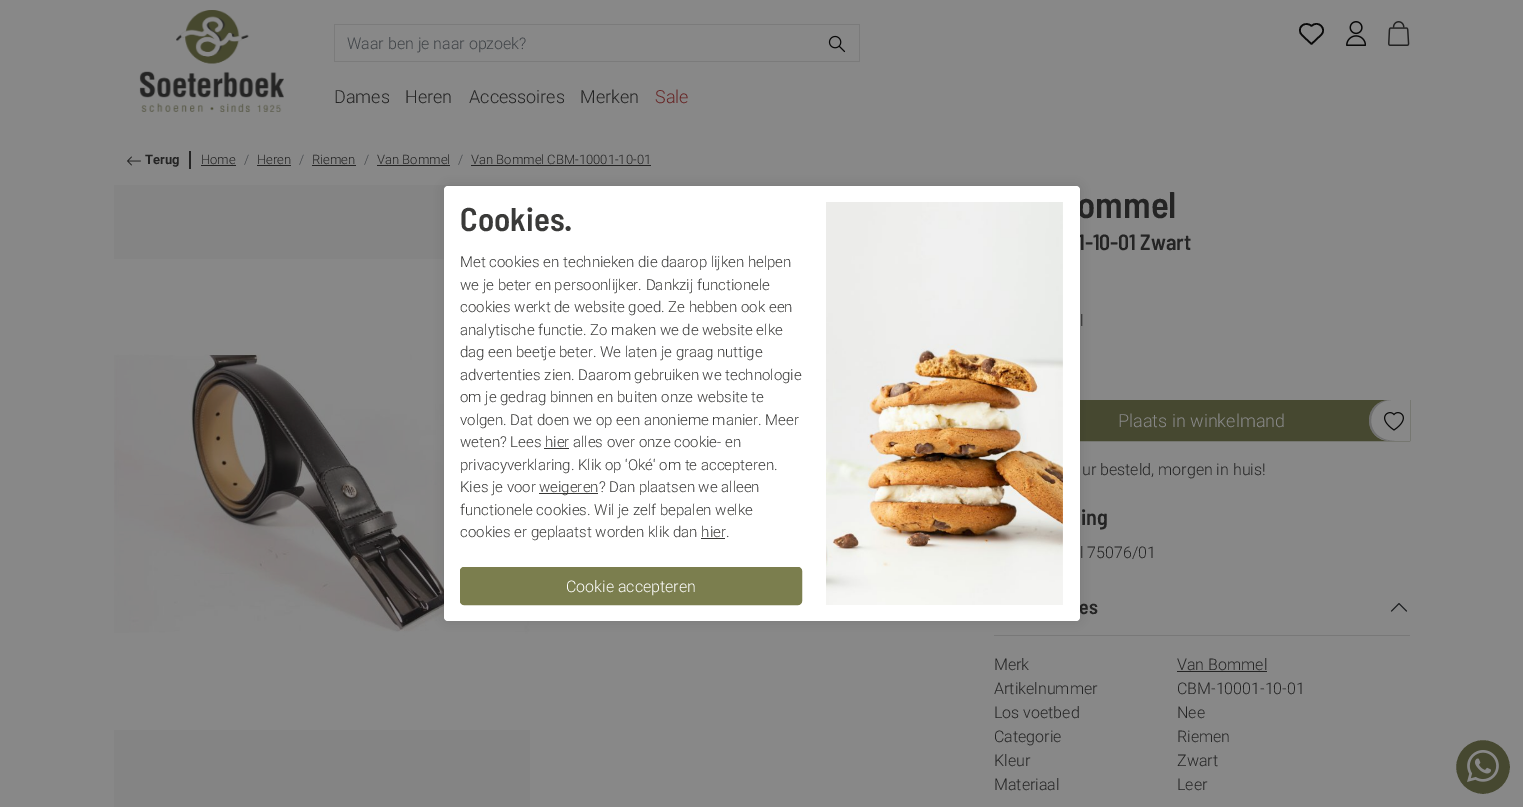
%!PS
<< /PageSize [1523 807] /PageUsesTransparency true >> setpagedevice
/alpha { dup .setfillconstantalpha .setstrokeconstantalpha } def
/roundrect { 5 dict begin { /r /h /w /y /x } { exch def } forall
  x r add y moveto x w add y 2 copy h add r arct x w add y h add x 1 index r arct
  x y h add x y r arct x y 2 copy exch w add exch r arct closepath end } def
/shadow { 12 dict begin { /a /b /q /h /w /y /x } { exch def } forall gsave /was 0 def
  9 -2 -9 { dup b mul 4 div /e exch def 1 sub .425 mul 2.718 exch exp 1 add a .99 .min exch div /now exch def
    1 1 now sub 1 was sub div sub alpha /was now def
    w h .min e 2 mul add 0 gt { x e sub y e sub w e 2 mul add h e 2 mul add
      q e add b .6 mul add w h .min 2 div e add .min 0 .max roundrect fill } if } for grestore end } def
/picture { 5 dict begin { /h /w /y /x /name } { exch def } forall
  gsave x y translate w h scale
  w h 8 [w 0 0 h 0 0] name (r) file false 3 colorimage grestore end } def
0 .pushpdf14devicefilter
0 807 translate 1 -1 scale
4 setmiterlimit
0.533 setgray
0 0 1523 807 rectfill
(img1.rgb) 139 10 145 102 picture
0.482 setgray
334 24 526 1 rectfill
334 61 482 1 rectfill
334 24 1 38 rectfill
/Roboto-Light [16 0 0 -16 0 0] selectfont
0.247 0.263 0.278 setrgbcolor
347 49 moveto (Waar ben je naar opzoek?) show
0.482 setgray
859 24 1 38 rectfill
815 61 45 1 rectfill
(img2.rgb) 828 35 18 18 picture
0.035 setgray
1.6 setlinewidth
1 setlinejoin
newpath 1321 35 moveto 1311.5 44 lineto 1305 38 lineto 1303.5 36.5 1301.5 35 1300.5 33 curveto 1297.5 26 1306 21 1311.5 26 curveto 1318 19.5 1327.5 29 1321 35 curveto closepath stroke
(img3.rgb) 1346 21 20 25 picture
(img4.rgb) 1388 21 22 25 picture
/Roboto-Light [18 0 0 -18 0 0] selectfont
0.141 setgray
334 103 moveto (Dames) show
405 103 moveto (Heren) show
469 103 moveto (Accessoires) show
580 103 moveto (Merken) show
0.404 0.149 0.149 setrgbcolor
655 103 moveto (Sale) show
(img5.rgb) 127 156 14 10 picture
/Roboto-Bold [13 0 0 -13 0 0] selectfont
0.141 setgray
145 164 moveto (Terug) show
189 151 2 18 rectfill
/Roboto-Light [13 0 0 -13 0 0] selectfont
201 164 moveto (Home) show
201 165 35 1 rectfill
0.247 0.263 0.278 setrgbcolor
244 164 moveto (/) show
0.141 setgray
257 164 moveto (Heren) show
257 165 34 1 rectfill
0.247 0.263 0.278 setrgbcolor
299 164 moveto (/) show
0.141 setgray
312 164 moveto (Riemen) show
312 165 44 1 rectfill
0.247 0.263 0.278 setrgbcolor
364 164 moveto (/) show
0.141 setgray
377 164 moveto (Van Bommel) show
377 165 73 1 rectfill
0.247 0.263 0.278 setrgbcolor
458 164 moveto (/) show
0.141 setgray
471 164 moveto (Van Bommel CBM-10001-10-01) show
471 165 180 1 rectfill
0.518 setgray
114 185 416 622 rectfill
(img6.rgb) 114 259 416 471 picture
/BarlowSemiCondensed-SemiBold [37 0 0 -37 0 0] selectfont
0.141 setgray
1077 218 moveto (ommel) show
/BarlowSemiCondensed-SemiBold [22 0 0 -22 0 0] selectfont
1078 250 moveto (1-10-01 Zwart) show
/Roboto-Light [16 0 0 -16 0 0] selectfont
1080 326 moveto (l) show
0.275 0.282 0.188 setrgbcolor
1080 401 304 39 rectfill
1 setlinewidth
0 setlinejoin
994.5 400.5 415 40 rectstroke
/Roboto-Light [18 0 0 -18 0 0] selectfont
0.533 setgray
1118 427 moveto (Plaats in winkelmand) show
newpath 1389.5 400 moveto 1410 400 lineto 1410 441 lineto 1389.5 441 lineto 1378 441 1369 432 1369 420.5 curveto 1369 409 1378 400 1389.5 400 curveto closepath fill
0.2 alpha
0.035 setgray
newpath 1390 400 moveto 1367 400 1361 431 1382 439 curveto 1386 441 1390 441 1395 441 curveto 1391 441 1387 440 1384 439 curveto 1363 431 1369 400 1392 400 curveto closepath fill
1 alpha
(img7.rgb) 1384 412 20 19 picture
/Roboto-Light [16 0 0 -16 0 0] selectfont
0.141 setgray
1082 475 moveto (ur besteld, morgen in huis!) show
/BarlowSemiCondensed-SemiBold [22 0 0 -22 0 0] selectfont
1081 525 moveto (ing) show
/Roboto-Light [16 0 0 -16 0 0] selectfont
1080 558 moveto (l 75076/01) show
0.471 setgray
994 635 416 1 rectfill
/BarlowSemiCondensed-SemiBold [20 0 0 -20 0 0] selectfont
0.141 setgray
1079 614 moveto (es) show
(img8.rgb) 1390 603 18 9 picture
/Roboto-Light [16 0 0 -16 0 0] selectfont
994 670 moveto (Merk) show
1177 670 moveto (Van Bommel) show
1177 671 90 1 rectfill
994 694 moveto (Artikelnummer) show
1177 694 moveto (CBM-10001-10-01) show
994 718 moveto (Los voetbed) show
1177 718 moveto (Nee) show
994 742 moveto (Categorie) show
1177 742 moveto (Riemen) show
994 766 moveto (Kleur) show
1177 766 moveto (Zwart) show
994 790 moveto (Materiaal) show
1177 790 moveto (Leer) show
0 setgray
444 186 636 435 4 5 0.1 shadow
1 setgray
444 186 636 435 4 roundrect fill
/BarlowSemiCondensed-SemiBold [33 0 0 -33 0 0] selectfont
0.227 0.227 0.224 setrgbcolor
460 231 moveto (Cookies.) show
/Roboto-Light [15 0 0 -15 0 0] selectfont
460 267 moveto (Met cookies en technieken die daarop lijken helpen) show
460 290 moveto (we je beter en persoonlijker. Dankzij functionele) show
460 312 moveto (cookies werkt de website goed. Ze hebben ook een) show
460 335 moveto (analytische functie. Zo maken we de website elke) show
460 357 moveto (dag een beetje beter. We laten je graag nuttige) show
460 380 moveto (advertenties zien. Daarom gebruiken we technologie) show
460 402 moveto (om je gedrag binnen en buiten onze website te) show
460 425 moveto (volgen. Dat doen we op een anonieme manier. Meer) show
460 447 moveto (weten? Lees hier alles over onze cookie- en) show
0.216 0.216 0.212 setrgbcolor
544 448 25 1 rectfill
0.227 0.227 0.224 setrgbcolor
460 470 moveto (privacyverklaring. Klik op 'Oké' om te accepteren.) show
460 492 moveto (Kies je voor) show
0.216 0.216 0.212 setrgbcolor
539 493 59 1 rectfill
0.227 0.227 0.224 setrgbcolor
539 492 moveto (weigeren? Dan plaatsen we alleen) show
460 515 moveto (functionele cookies. Wil je zelf bepalen welke) show
460 537 moveto (cookies er geplaatst worden klik dan hier.) show
0.216 0.216 0.212 setrgbcolor
701 538 24 1 rectfill
0.482 0.494 0.306 setrgbcolor
460.5 567.5 341 37 3.5 roundrect gsave fill grestore
stroke
/Roboto-Light [16 0 0 -16 0 0] selectfont
1 setgray
566 592 moveto (Cookie accepteren) show
(img9.rgb) 826 202 237 403 picture
0.275 0.282 0.188 setrgbcolor
newpath 1483 767 28.5 0 360 arc closepath gsave fill grestore
0.533 setgray
3 setlinewidth
stroke
(img10.rgb) 1467 750 32 32 picture
.poppdf14devicefilter showpage
